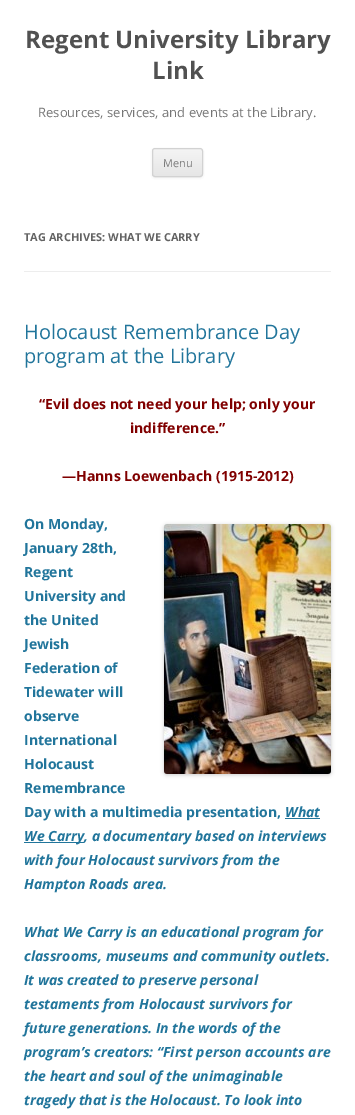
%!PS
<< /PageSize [355 1115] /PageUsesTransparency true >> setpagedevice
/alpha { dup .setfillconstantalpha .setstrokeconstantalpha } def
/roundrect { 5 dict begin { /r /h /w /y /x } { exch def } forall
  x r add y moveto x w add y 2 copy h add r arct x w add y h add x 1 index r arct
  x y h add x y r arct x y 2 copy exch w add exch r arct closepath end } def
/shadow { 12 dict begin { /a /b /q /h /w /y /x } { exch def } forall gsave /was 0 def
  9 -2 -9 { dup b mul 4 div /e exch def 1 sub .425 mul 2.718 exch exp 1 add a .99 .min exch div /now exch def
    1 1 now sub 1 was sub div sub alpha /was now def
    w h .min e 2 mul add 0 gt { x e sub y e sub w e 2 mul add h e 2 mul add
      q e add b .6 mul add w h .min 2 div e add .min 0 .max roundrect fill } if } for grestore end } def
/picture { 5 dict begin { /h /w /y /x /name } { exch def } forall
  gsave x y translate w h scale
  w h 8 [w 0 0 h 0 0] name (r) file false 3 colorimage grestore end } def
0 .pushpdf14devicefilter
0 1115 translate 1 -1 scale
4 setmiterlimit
1 setgray
0 0 355 1115 rectfill
/OpenSans-Bold [24 0 0 -24 0 0] selectfont
0.318 setgray
25 48 moveto (Regent University Library) show
152 79 moveto (Link) show
/OpenSans-Regular [13 0 0 -13 0 0] selectfont
0.459 setgray
38 117 moveto (Resources, services, and events at the Library.) show
0.251 setgray
152 149 51 29 3 1 0.1 shadow
gsave
152 148 51 29 3 roundrect clip newpath
gsave newpath 152 149 moveto 203 149 lineto 203 176 lineto 152 176 lineto closepath clip newpath
<< /ShadingType 2 /ColorSpace /DeviceRGB /Coords [178 149 178 176] /Extend [true true] /Function << /FunctionType 2 /Domain [0 1] /C0 [0.957 0.957 0.957] /C1 [0.902 0.902 0.902] /N 1 >> >> shfill grestore
grestore
0.824 setgray
152.5 148.5 50 28 2.5 roundrect stroke
/OpenSans-Regular [11 0 0 -11 0 0] selectfont
0.486 setgray
163 167 moveto (Menu) show
0.929 setgray
24 271 307 1 rectfill
/OpenSans-Bold [11 0 0 -11 0 0] selectfont
0.388 setgray
24 241 moveto (TAG ARCHIVES: WHAT WE CARRY) show
/OpenSans-Regular [20 0 0 -20 0 0] selectfont
0.129 0.459 0.608 setrgbcolor
24 339 moveto (Holocaust Remembrance Day) show
24 363 moveto (program at the Library) show
/OpenSans-Bold [14 0 0 -14 0 0] selectfont
0.502 0 0 setrgbcolor
39 409 moveto (“Evil does not need your help; only your) show
130 433 moveto (indifference.”) show
62 481 moveto (—Hanns Loewenbach \(1915-2012\)) show
0.129 0.459 0.608 setrgbcolor
24 529 moveto (On Monday,) show
0 setgray
164 525 167 250 3 2 0.2 shadow
(img1.rgb) 164 524 167 250 picture
0.129 0.459 0.608 setrgbcolor
24 553 moveto (January 28th,) show
24 577 moveto (Regent) show
24 601 moveto (University and) show
24 625 moveto (the United) show
24 649 moveto (Jewish) show
24 673 moveto (Federation of) show
24 697 moveto (Tidewater will) show
24 721 moveto (observe) show
24 745 moveto (International) show
24 769 moveto (Holocaust) show
24 793 moveto (Remembrance) show
24 817 moveto (Day with a multimedia presentation,) show
/OpenSans-BoldItalic [14 0 0 -14 0 0] selectfont
285 817 moveto (What) show
285 818 35 1 rectfill
24 842 60 1 rectfill
24 841 moveto (We Carry, a documentary based on interviews) show
24 865 moveto (with four Holocaust survivors from the) show
24 889 moveto (Hampton Roads area.) show
24 937 moveto (What We Carry is an educational program for) show
24 961 moveto (classrooms, museums and community outlets.) show
24 985 moveto (It was created to preserve personal) show
24 1009 moveto (testaments from Holocaust survivors for) show
24 1033 moveto (future generations. In the words of the) show
24 1057 moveto (program’s creators: “First person accounts are) show
24 1081 moveto (the heart and soul of the unimaginable) show
24 1105 moveto (tragedy that is the Holocaust. To look into) show
.poppdf14devicefilter showpage
